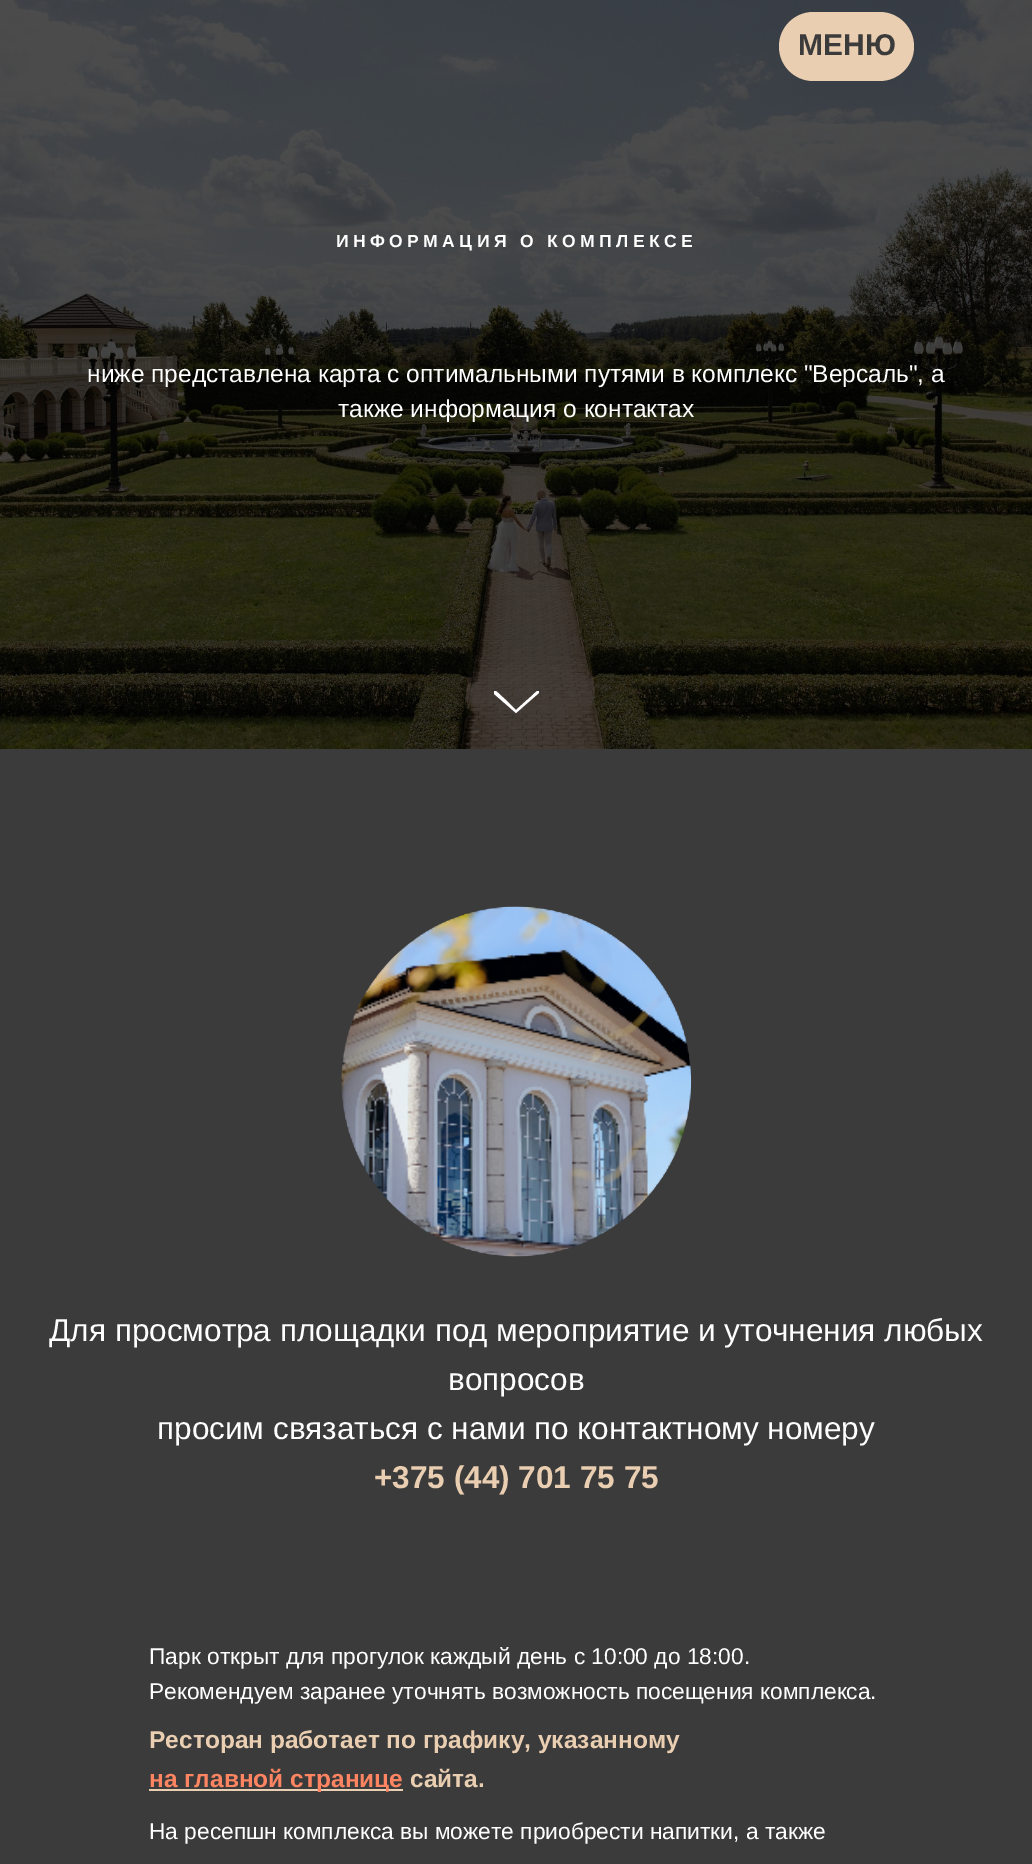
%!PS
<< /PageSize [1032 1864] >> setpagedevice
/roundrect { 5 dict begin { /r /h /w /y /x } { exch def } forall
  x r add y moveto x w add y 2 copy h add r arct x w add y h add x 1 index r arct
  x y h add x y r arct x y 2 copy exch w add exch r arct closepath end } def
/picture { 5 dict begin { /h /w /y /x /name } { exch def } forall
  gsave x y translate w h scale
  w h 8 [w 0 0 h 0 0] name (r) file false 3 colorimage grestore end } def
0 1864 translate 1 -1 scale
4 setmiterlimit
0.231 setgray
0 0 1032 1864 rectfill
(img1.rgb) 0 0 1032 749 picture
0.918 0.808 0.694 setrgbcolor
779 12 135 69 34.5 roundrect fill
/LiberationSans-Bold [30 0 0 -30 0 0] selectfont
0.231 setgray
798 55 moveto (МЕНЮ) show
/LiberationSans-Bold [17.5 0 0 -17.5 0 0] selectfont
1 setgray
336 247 moveto 4.4 0 (ИНФОРМАЦИЯ О КОМПЛЕКСЕ) ashow
/LiberationSans-Regular [24.5 0 0 -24.5 0 0] selectfont
87 382 moveto (ниже представлена карта с оптимальными путями в комплекс "Версаль", а) show
338 417 moveto (также информация о контактах) show
gsave
494 691 45 23 rectclip
newpath 516 713 moveto 493 693 lineto 493 692 493 691 494 690 curveto 496 690 504 699 506 700 curveto 516 710 lineto 527 700 lineto 529 699 537 690 539 690 curveto 540 691 540 692 540 692 curveto closepath fill
grestore
(img2.rgb) 341 906 351 351 picture
/LiberationSans-Regular [31.5 0 0 -31.5 0 0] selectfont
49 1341 moveto (Для просмотра площадки под мероприятие и уточнения любых) show
448 1390 moveto (вопросов) show
157 1439 moveto (просим связаться с нами по контактному номеру) show
/LiberationSans-Bold [31.5 0 0 -31.5 0 0] selectfont
0.918 0.808 0.694 setrgbcolor
374 1488 moveto (+375 \(44\) 701 75 75) show
/LiberationSans-Regular [22.75 0 0 -22.75 0 0] selectfont
1 setgray
149 1664 moveto (Парк открыт для прогулок каждый день с 10:00 до 18:00.) show
149 1699 moveto (Рекомендуем заранее уточнять возможность посещения комплекса.) show
149 1839 moveto (На ресепшн комплекса вы можете приобрести напитки, а также) show
/LiberationSans-Bold [24.5 0 0 -24.5 0 0] selectfont
0.918 0.808 0.694 setrgbcolor
149 1748 moveto (Ресторан работает по графику, указанному) show
149 1789 254 2 rectfill
1 0.522 0.384 setrgbcolor
149 1787 moveto (на главной странице) show
0.918 0.808 0.694 setrgbcolor
410 1787 moveto (сайта.) show
showpage
